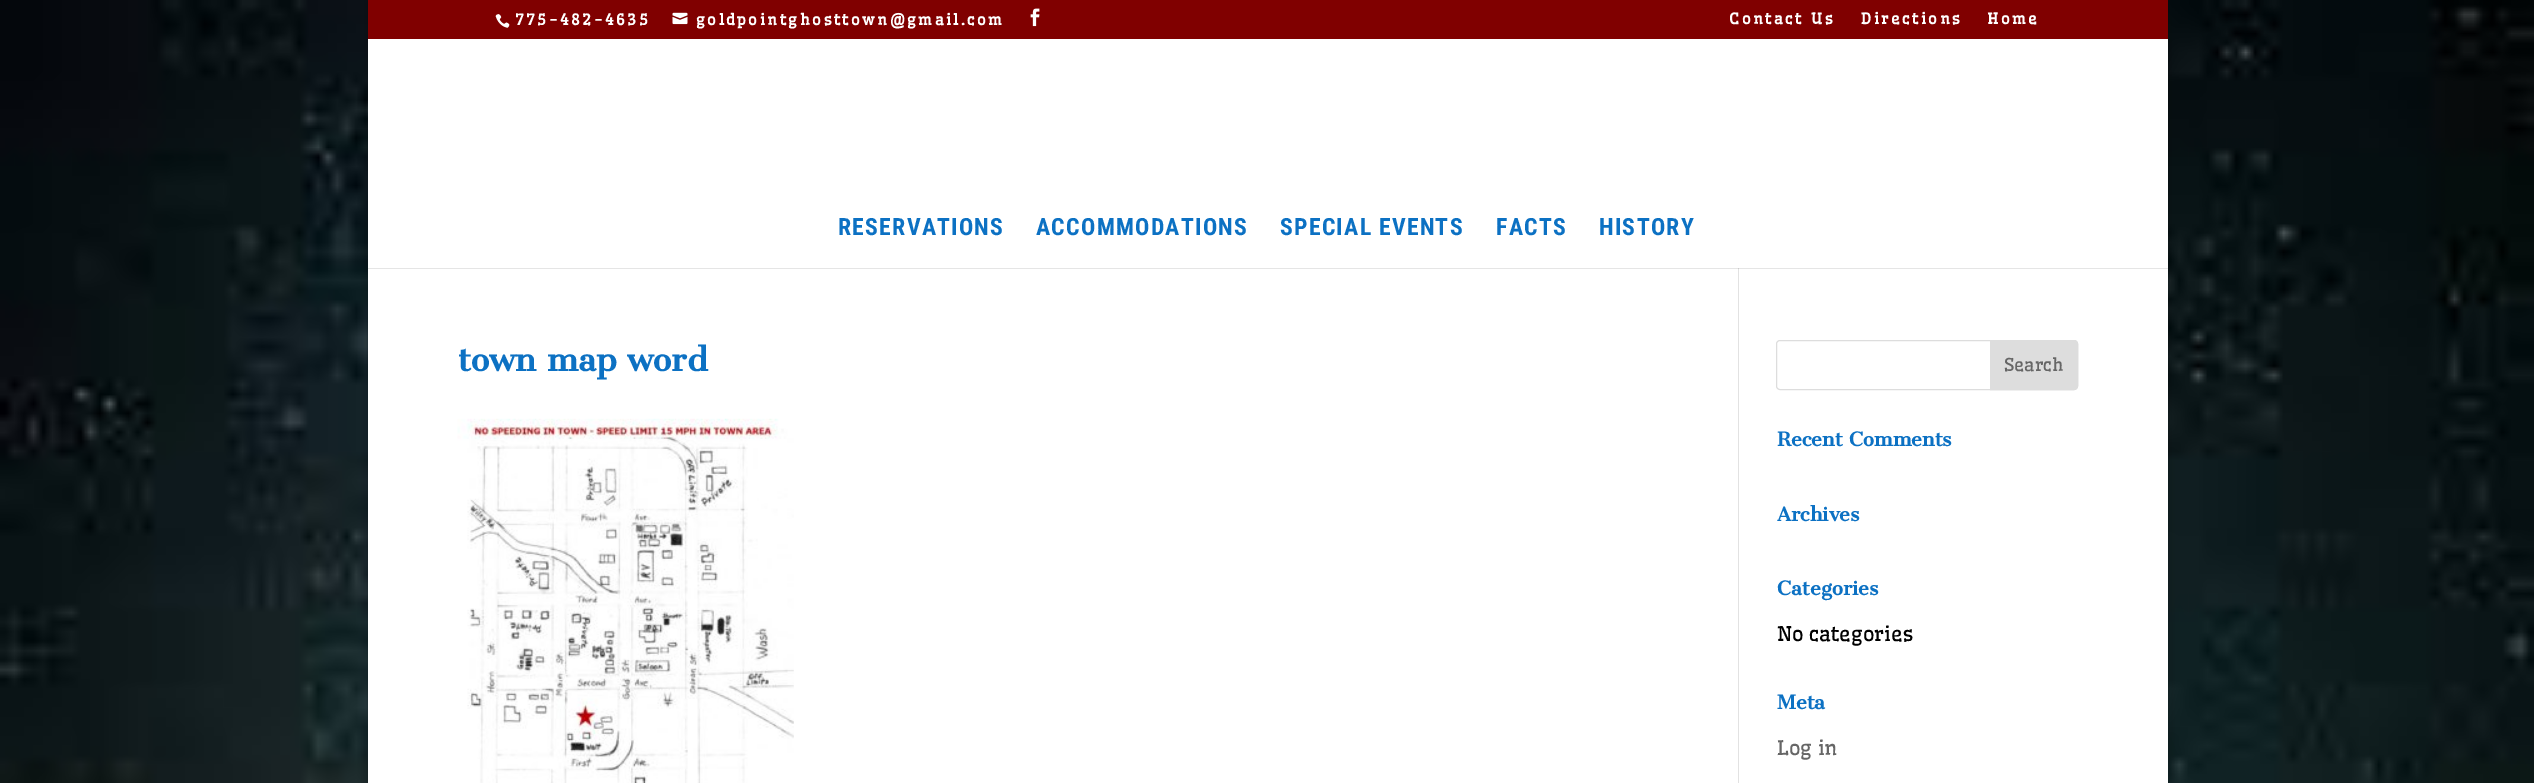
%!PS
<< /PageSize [2534 783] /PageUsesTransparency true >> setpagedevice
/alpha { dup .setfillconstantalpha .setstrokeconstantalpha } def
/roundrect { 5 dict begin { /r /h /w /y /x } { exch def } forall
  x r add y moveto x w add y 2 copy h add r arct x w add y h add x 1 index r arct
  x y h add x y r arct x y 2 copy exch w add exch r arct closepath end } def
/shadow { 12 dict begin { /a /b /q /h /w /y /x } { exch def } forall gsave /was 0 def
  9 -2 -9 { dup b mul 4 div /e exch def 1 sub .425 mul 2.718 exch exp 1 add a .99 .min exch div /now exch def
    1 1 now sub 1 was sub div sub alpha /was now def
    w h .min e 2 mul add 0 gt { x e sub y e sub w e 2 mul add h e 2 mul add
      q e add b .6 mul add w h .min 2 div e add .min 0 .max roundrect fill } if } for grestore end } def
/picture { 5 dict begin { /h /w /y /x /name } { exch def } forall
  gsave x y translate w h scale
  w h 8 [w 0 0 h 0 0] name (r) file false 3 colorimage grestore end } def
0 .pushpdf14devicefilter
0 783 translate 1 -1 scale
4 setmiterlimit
1 setgray
0 0 2534 783 rectfill
(img1.rgb) 0 0 2534 783 picture
0 setgray
368 0 1800 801 0 6 0.2 shadow
0.502 0 0 setrgbcolor
368 0 1800 39 rectfill
(img2.rgb) 495 14 15 14 picture
/Wellfleet-Bold [15 0 0 -15 0 0] selectfont
1 setgray
515 25 moveto 2.5 0 (775-482-4635) ashow
(img3.rgb) 672 12 16 13 picture
696 25 moveto 2.5 0 (goldpointghosttown@gmail.com) ashow
(img4.rgb) 1030 8 10 19 picture
1729 24 moveto 2.5 0 (Contact Us) ashow
1861 24 moveto 2.5 0 (Directions) ashow
1987 24 moveto 2.5 0 (Home) ashow
368 39 1800 744 rectfill
0.886 setgray
1738 268 1 515 rectfill
0.1 alpha
0 setgray
newpath 368 268 moveto 368 269 lineto 2168 269 lineto 2168 40 lineto 2168 268 lineto closepath fill
/RobotoCondensed-Bold [23.75 0 0 -23.75 0 0] selectfont
1 alpha
0.047 0.443 0.765 setrgbcolor
838 235 moveto 1.25 0 (RESERVATIONS) ashow
1036 235 moveto 1.25 0 (ACCOMMODATIONS) ashow
1280 235 moveto 1.25 0 (SPECIAL EVENTS) ashow
1496 235 moveto 1.25 0 (FACTS) ashow
1599 235 moveto 1.25 0 (HISTORY) ashow
/CantataOne-Bold [31.25 0 0 -31.25 0 0] selectfont
458 371 moveto (town map word) show
(img5.rgb) 457 418 337 365 picture
0.867 setgray
1776.5 340.5 301 49 3.5 roundrect stroke
newpath 1990.5 340.5 moveto 2074 340.5 lineto 2076 340.5 2077.5 342 2077.5 344 curveto 2077.5 386 lineto 2077.5 388 2076 389.5 2074 389.5 curveto 1990.5 389.5 lineto closepath gsave fill grestore
stroke
/Wellfleet-Regular [17.5 0 0 -17.5 0 0] selectfont
0.4 setgray
2004 371 moveto (Search) show
/CantataOne-Bold [18.75 0 0 -18.75 0 0] selectfont
0.047 0.443 0.765 setrgbcolor
1777 446 moveto (Recent Comments) show
1777 521 moveto (Archives) show
1777 595 moveto (Categories) show
/Wellfleet-Regular [20 0 0 -20 0 0] selectfont
0 setgray
1777 641 moveto (No categories) show
/CantataOne-Bold [18.75 0 0 -18.75 0 0] selectfont
0.047 0.443 0.765 setrgbcolor
1777 709 moveto (Meta) show
/Wellfleet-Regular [20 0 0 -20 0 0] selectfont
0.4 setgray
1777 755 moveto (Log in) show
.poppdf14devicefilter showpage
